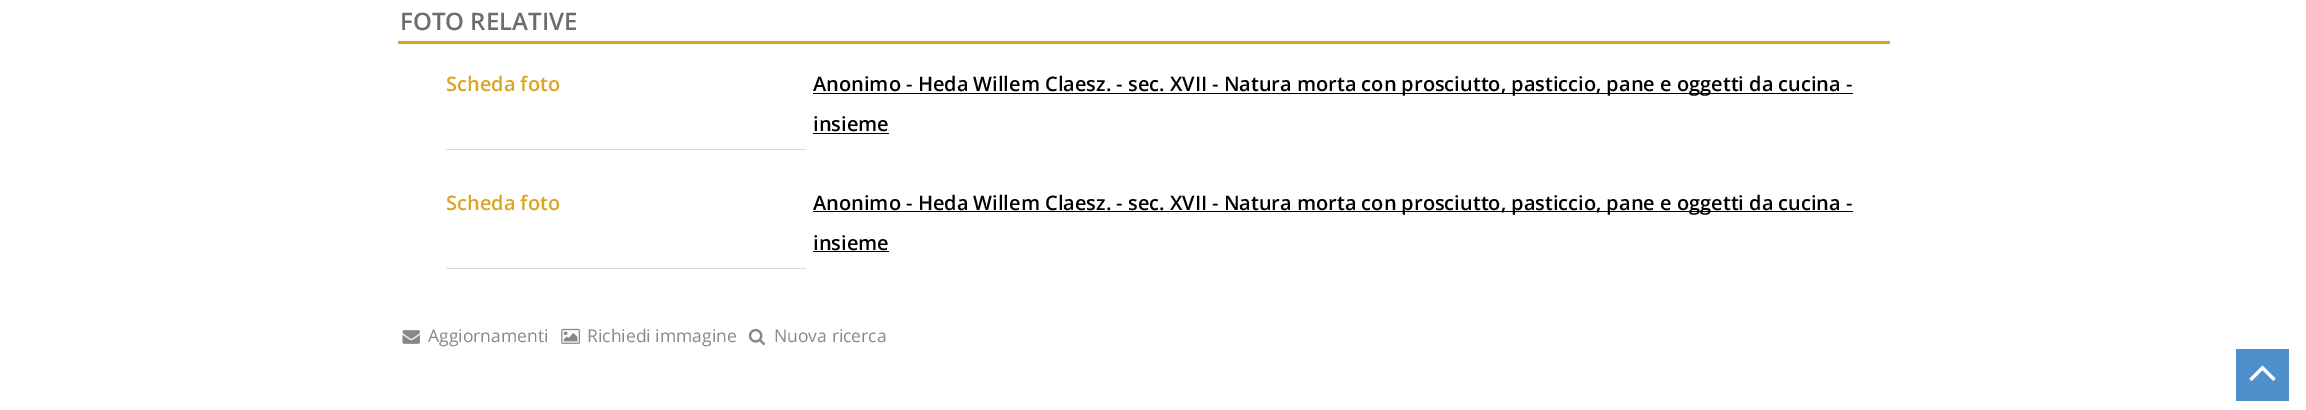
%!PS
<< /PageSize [2306 410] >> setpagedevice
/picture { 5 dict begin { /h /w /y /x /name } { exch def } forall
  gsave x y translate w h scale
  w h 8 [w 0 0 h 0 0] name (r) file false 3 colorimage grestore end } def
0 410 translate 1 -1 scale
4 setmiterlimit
1 setgray
0 0 2306 410 rectfill
0.855 0.647 0.125 setrgbcolor
398 41 1492 3 rectfill
/OpenSans-SemiBold [24 0 0 -24 0 0] selectfont
0.424 setgray
400 30 moveto (FOTO RELATIVE) show
0.855 setgray
446 149 360 1 rectfill
/OpenSans-SemiBold [20 0 0 -20 0 0] selectfont
0.855 0.647 0.125 setrgbcolor
446 91 moveto (Scheda foto) show
0 setgray
813 93 1040 1 rectfill
813 91 moveto (Anonimo - Heda Willem Claesz. - sec. XVII - Natura morta con prosciutto, pasticcio, pane e oggetti da cucina -) show
813 131 moveto (insieme) show
813 133 76 1 rectfill
0.855 setgray
446 268 360 1 rectfill
0.855 0.647 0.125 setrgbcolor
446 210 moveto (Scheda foto) show
0 setgray
813 211 1040 1 rectfill
813 210 moveto (Anonimo - Heda Willem Claesz. - sec. XVII - Natura morta con prosciutto, pasticcio, pane e oggetti da cucina -) show
813 250 moveto (insieme) show
813 251 76 1 rectfill
(img1.rgb) 402 330 18 14 picture
/OpenSans-Regular [17.5 0 0 -17.5 0 0] selectfont
0.533 setgray
428 342 moveto (Aggiornamenti) show
(img2.rgb) 561 328 19 16 picture
587 342 moveto (Richiedi immagine) show
(img3.rgb) 748 328 17 18 picture
774 342 moveto (Nuova ricerca) show
0.31 0.565 0.796 setrgbcolor
2236 349 53 52 rectfill
(img4.rgb) 2249 365 27 16 picture
showpage
